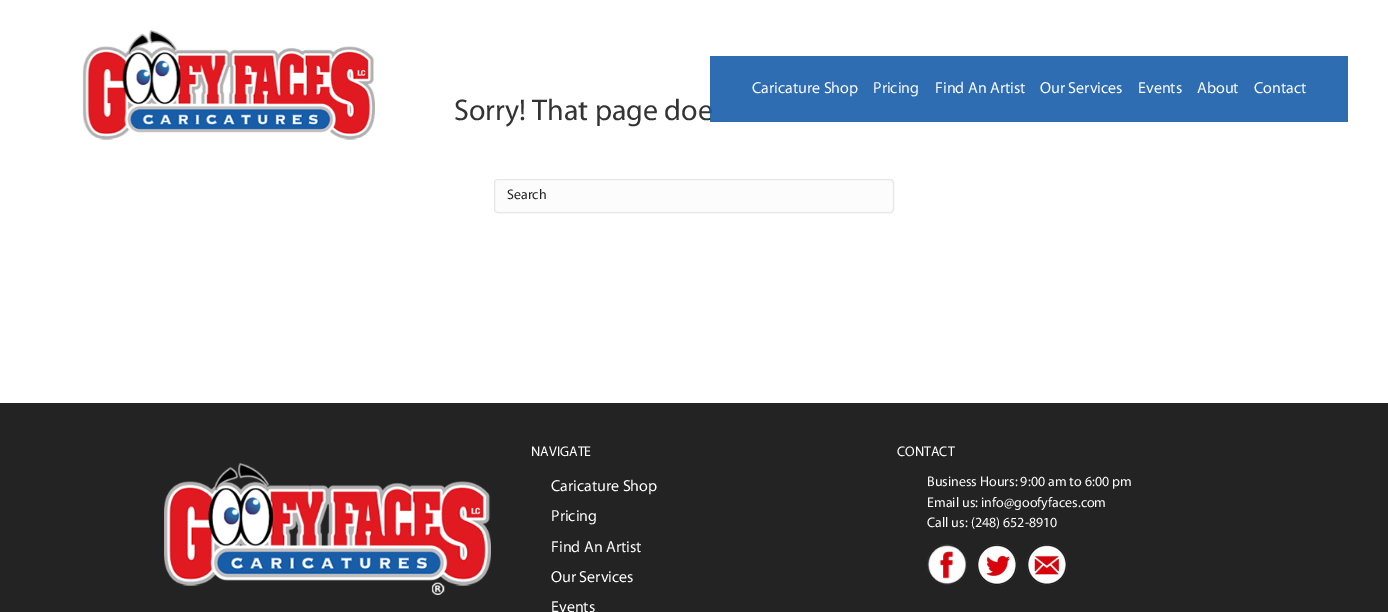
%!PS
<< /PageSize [1388 612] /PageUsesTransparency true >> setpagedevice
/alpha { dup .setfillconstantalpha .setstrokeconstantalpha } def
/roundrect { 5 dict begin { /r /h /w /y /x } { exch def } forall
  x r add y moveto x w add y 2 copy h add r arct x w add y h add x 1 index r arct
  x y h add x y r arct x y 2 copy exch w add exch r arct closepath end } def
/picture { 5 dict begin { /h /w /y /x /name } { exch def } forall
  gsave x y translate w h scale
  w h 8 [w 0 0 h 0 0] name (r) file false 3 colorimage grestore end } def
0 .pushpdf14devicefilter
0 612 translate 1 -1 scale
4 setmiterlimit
1 setgray
0 0 1388 612 rectfill
(img1.rgb) 82 30 293 110 picture
/Myriad-Regular [30 0 0 -30 0 0] selectfont
0.2 setgray
454 120 moveto (Sorry! That page doe) show
0.9 alpha
0.09 0.365 0.659 setrgbcolor
710 56 638 66 rectfill
/Myriad-Regular [16 0 0 -16 0 0] selectfont
1 alpha
1 setgray
752 93 moveto (Caricature Shop) show
873 93 moveto (Pricing) show
935 93 moveto (Find An Artist) show
1040 93 moveto (Our Services) show
1138 93 moveto (Events) show
1197 93 moveto (About) show
1254 93 moveto (Contact) show
0.988 setgray
494.5 179.5 399 33 3.5 roundrect gsave fill grestore
0.902 setgray
stroke
/Myriad-Regular [14 0 0 -14 0 0] selectfont
0.137 setgray
507 199 moveto (Search) show
0 403 1388 209 rectfill
(img2.rgb) 164 463 327 132 picture
1 setgray
531 456 moveto (NAVIGATE) show
/Myriad-Regular [16 0 0 -16 0 0] selectfont
551 491 moveto (Caricature Shop) show
551 521 moveto (Pricing) show
551 552 moveto (Find An Artist) show
551 582 moveto (Our Services) show
551 612 moveto (Events) show
/Myriad-Regular [14 0 0 -14 0 0] selectfont
897 456 moveto (CONTACT) show
927 486 moveto (Business Hours: 9:00 am to 6:00 pm) show
927 507 moveto (Email us: info@goofyfaces.com) show
927 527 moveto (Call us: \(248\) 652-8910) show
(img3.rgb) 927 544 40 41 picture
(img4.rgb) 977 544 40 41 picture
(img5.rgb) 1027 544 40 41 picture
.poppdf14devicefilter showpage
